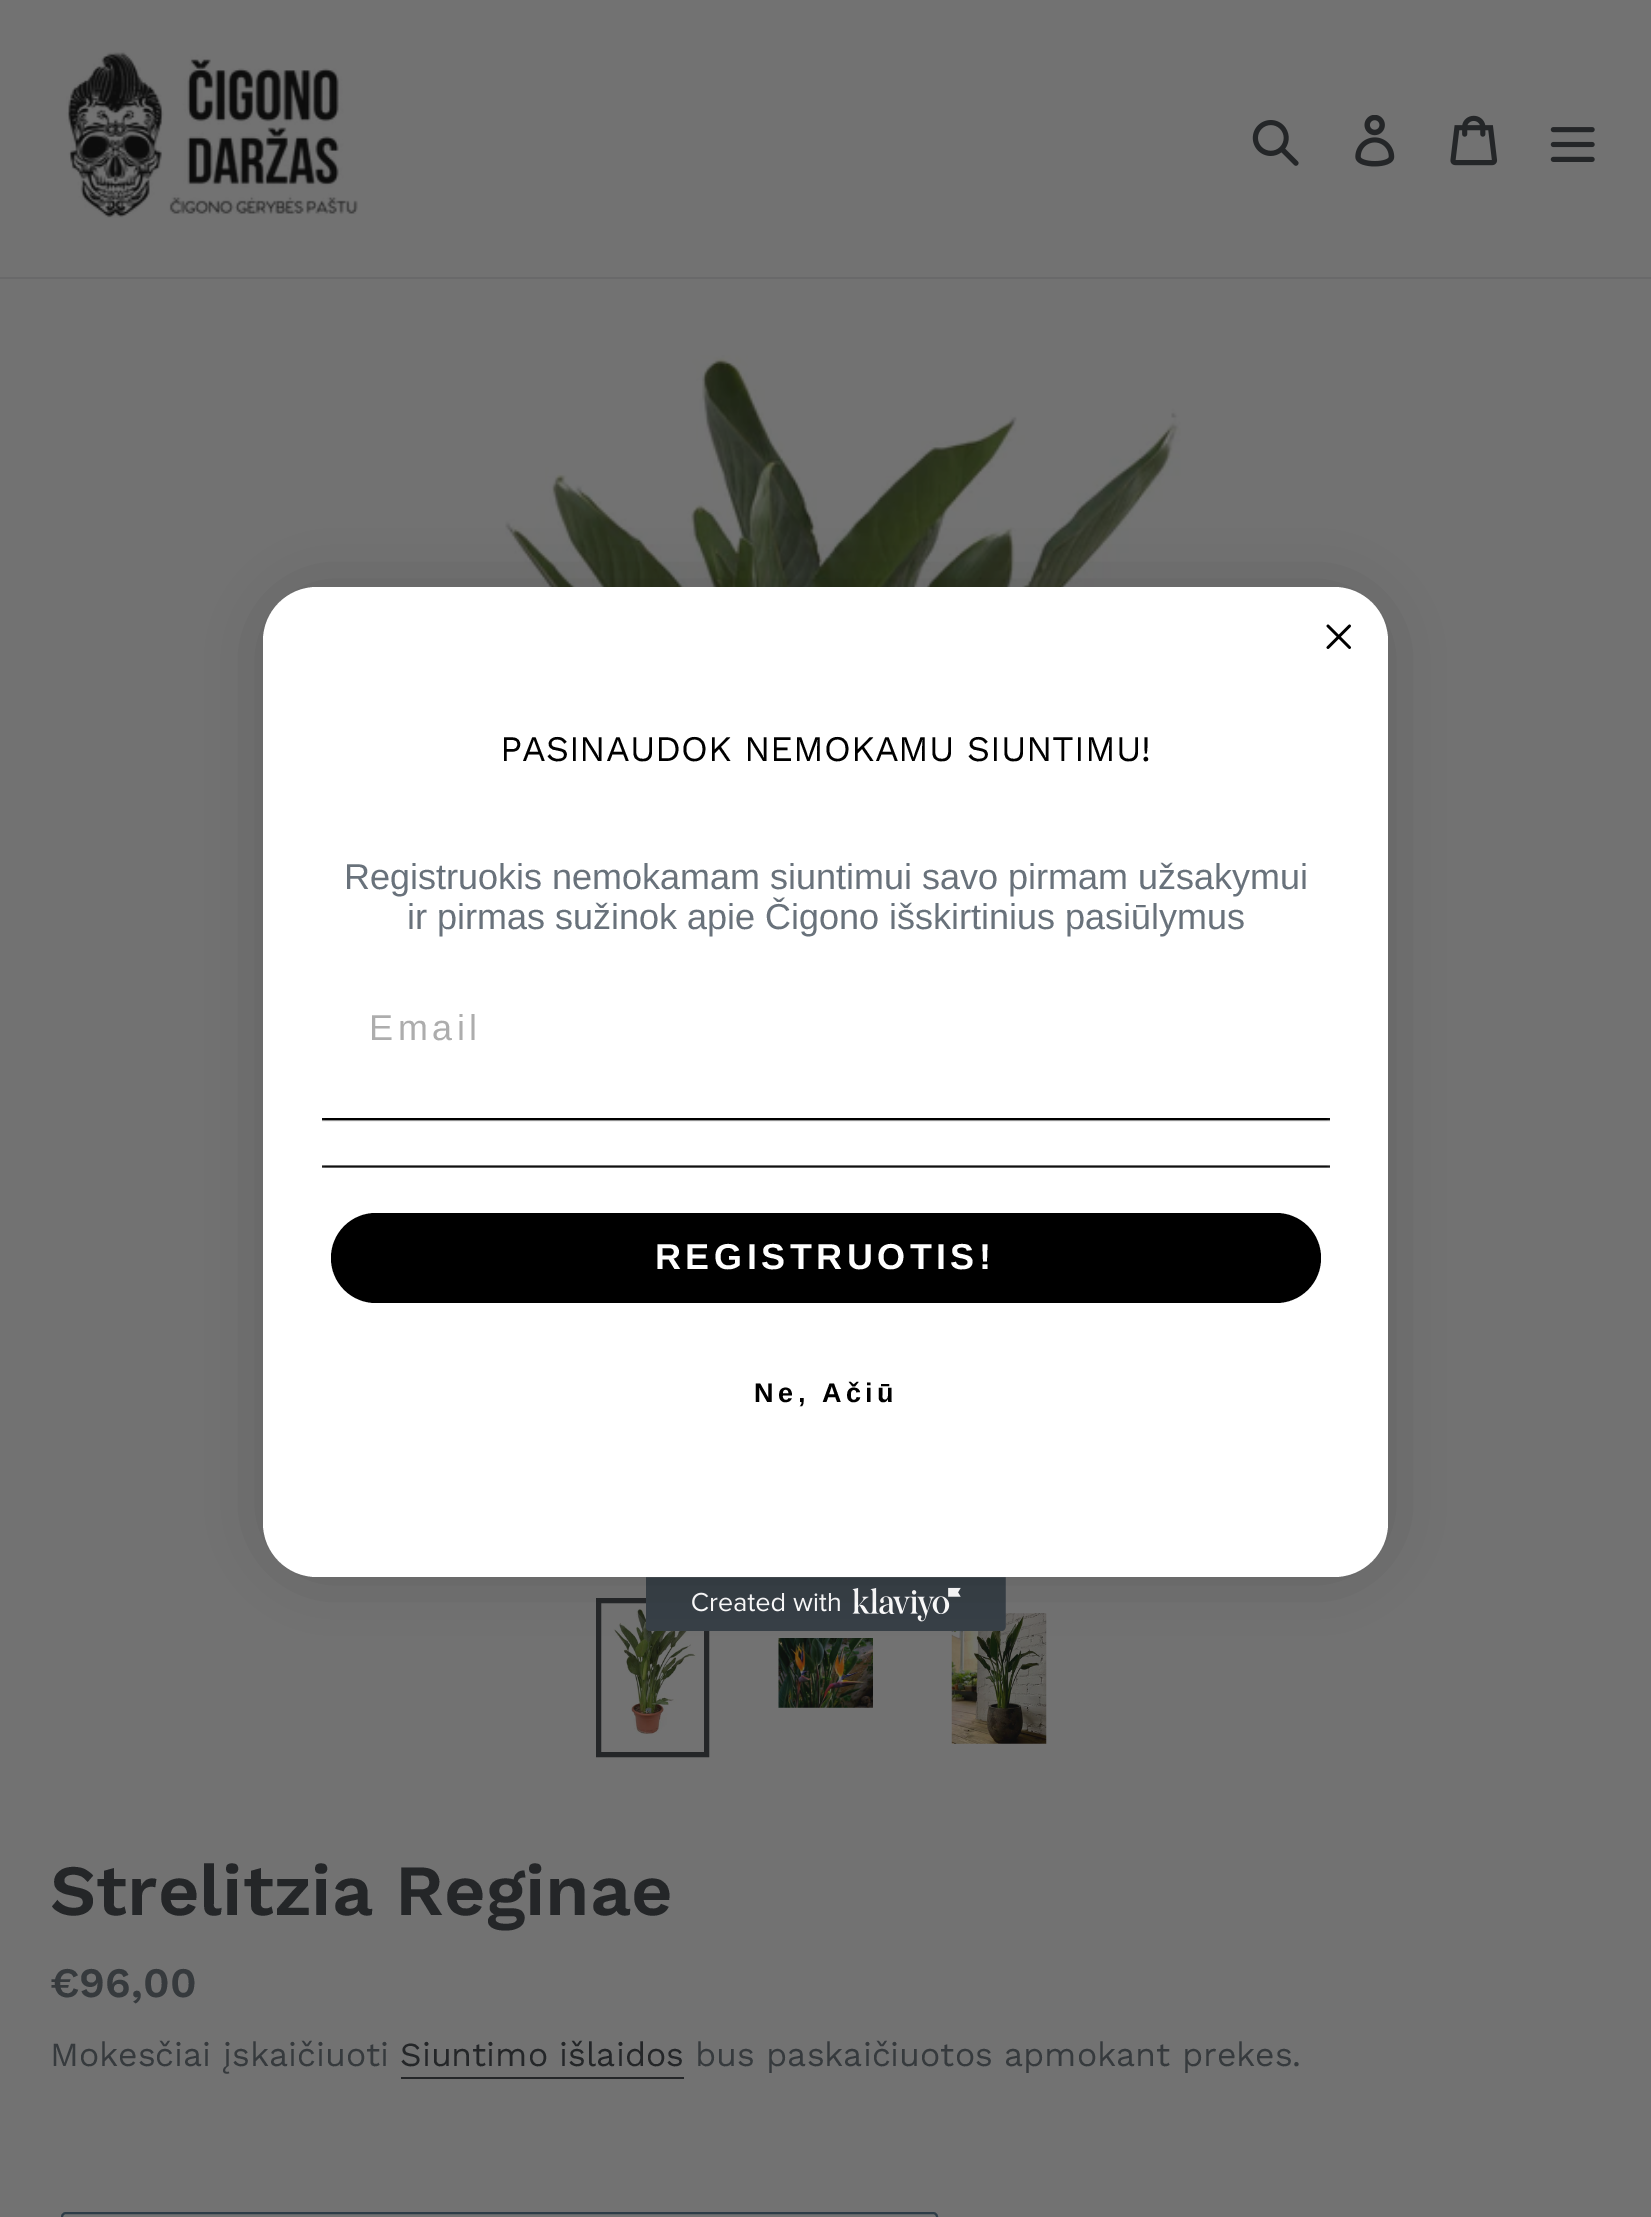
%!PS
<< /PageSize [1651 2217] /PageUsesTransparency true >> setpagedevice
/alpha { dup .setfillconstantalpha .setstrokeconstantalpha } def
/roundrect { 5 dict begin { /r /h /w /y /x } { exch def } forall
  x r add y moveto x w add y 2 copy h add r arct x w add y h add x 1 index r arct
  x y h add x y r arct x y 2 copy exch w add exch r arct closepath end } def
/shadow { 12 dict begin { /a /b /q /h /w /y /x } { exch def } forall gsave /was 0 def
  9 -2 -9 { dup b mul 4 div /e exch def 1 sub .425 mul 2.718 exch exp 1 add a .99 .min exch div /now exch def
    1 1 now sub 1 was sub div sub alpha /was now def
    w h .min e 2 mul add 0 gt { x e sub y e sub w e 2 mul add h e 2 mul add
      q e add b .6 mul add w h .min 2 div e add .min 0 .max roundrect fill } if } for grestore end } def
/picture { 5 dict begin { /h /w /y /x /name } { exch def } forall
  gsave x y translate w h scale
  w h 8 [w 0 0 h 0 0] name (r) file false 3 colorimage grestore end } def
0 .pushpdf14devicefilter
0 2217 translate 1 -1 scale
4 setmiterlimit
0.447 setgray
0 0 1651 2217 rectfill
0.412 0.412 0.416 setrgbcolor
0 277 1651 2 rectfill
(img1.rgb) 66 50 292 168 picture
(img2.rgb) 1252 120 47 46 picture
(img3.rgb) 1355 115 40 52 picture
(img4.rgb) 1450 115 48 51 picture
(img5.rgb) 1550 127 45 35 picture
0.141 0.149 0.157 setrgbcolor
5 setlinewidth
598.5 1600.5 108 154 rectstroke
(img10.rgb) 613 1609 83 126 picture
(img12.rgb) 951 1613 96 131 picture
(img8.rgb) 646 1577 360 54 picture
(img9.rgb) 505 355 676 232 picture
(img11.rgb) 778 1638 95 70 picture
0 setgray
263 587 1125 990 54 34 0.15 shadow
1 setgray
263 587 1125 990 54 roundrect fill
0 setgray
2.7 setlinewidth
1 setlinecap
1 setlinejoin
newpath 1328 626 moveto 1349.5 647.5 lineto 1328 647.5 moveto 1349.5 626 lineto closepath stroke
/WorkSans-Regular [36 0 0 -36 0 0] selectfont
500 761 moveto (PASINAUDOK NEMOKAMU SIUNTIMU!) show
/LiberationSans-Regular [36 0 0 -36 0 0] selectfont
0.412 0.447 0.482 setrgbcolor
344 889 moveto (Registruokis nemokamam siuntimui savo pirmam užsakymui) show
407 929 moveto (ir pirmas sužinok apie Čigono išskirtinius pasiūlymus) show
0.678 setgray
369 1040 moveto 4.5 0 (Email) ashow
(img6.rgb) 322 1118 1008 4 picture
(img7.rgb) 322 1165 1008 3 picture
0 setgray
331 1213 990 90 45 roundrect fill
/LiberationSans-Bold [36 0 0 -36 0 0] selectfont
1 setgray
655 1269 moveto 4.5 0 (REGISTRUOTIS!) ashow
/LiberationSans-Bold [27 0 0 -27 0 0] selectfont
0 setgray
754 1402 moveto 4.5 0 (Ne, Ačiū) ashow
/WorkSans-SemiBold [72 0 0 -72 0 0] selectfont
0.141 0.149 0.157 setrgbcolor
50 1915 moveto (Strelitzia Reginae) show
/WorkSans-SemiBold [42 0 0 -42 0 0] selectfont
0.212 0.227 0.239 setrgbcolor
50 1997 moveto (€96,00) show
/WorkSans-Regular [33.75 0 0 -33.75 0 0] selectfont
50 2066 moveto (Mokesčiai įskaičiuoti) show
0.141 0.149 0.157 setrgbcolor
400 2066 moveto (Siuntimo išlaidos) show
401 2077 283 2 rectfill
0.212 0.227 0.239 setrgbcolor
695 2066 moveto (bus paskaičiuotos apmokant prekes.) show
0.18 0.239 0.282 setrgbcolor
2 setlinewidth
0 setlinecap
0 setlinejoin
62 2213 875 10 4 roundrect stroke
.poppdf14devicefilter showpage
